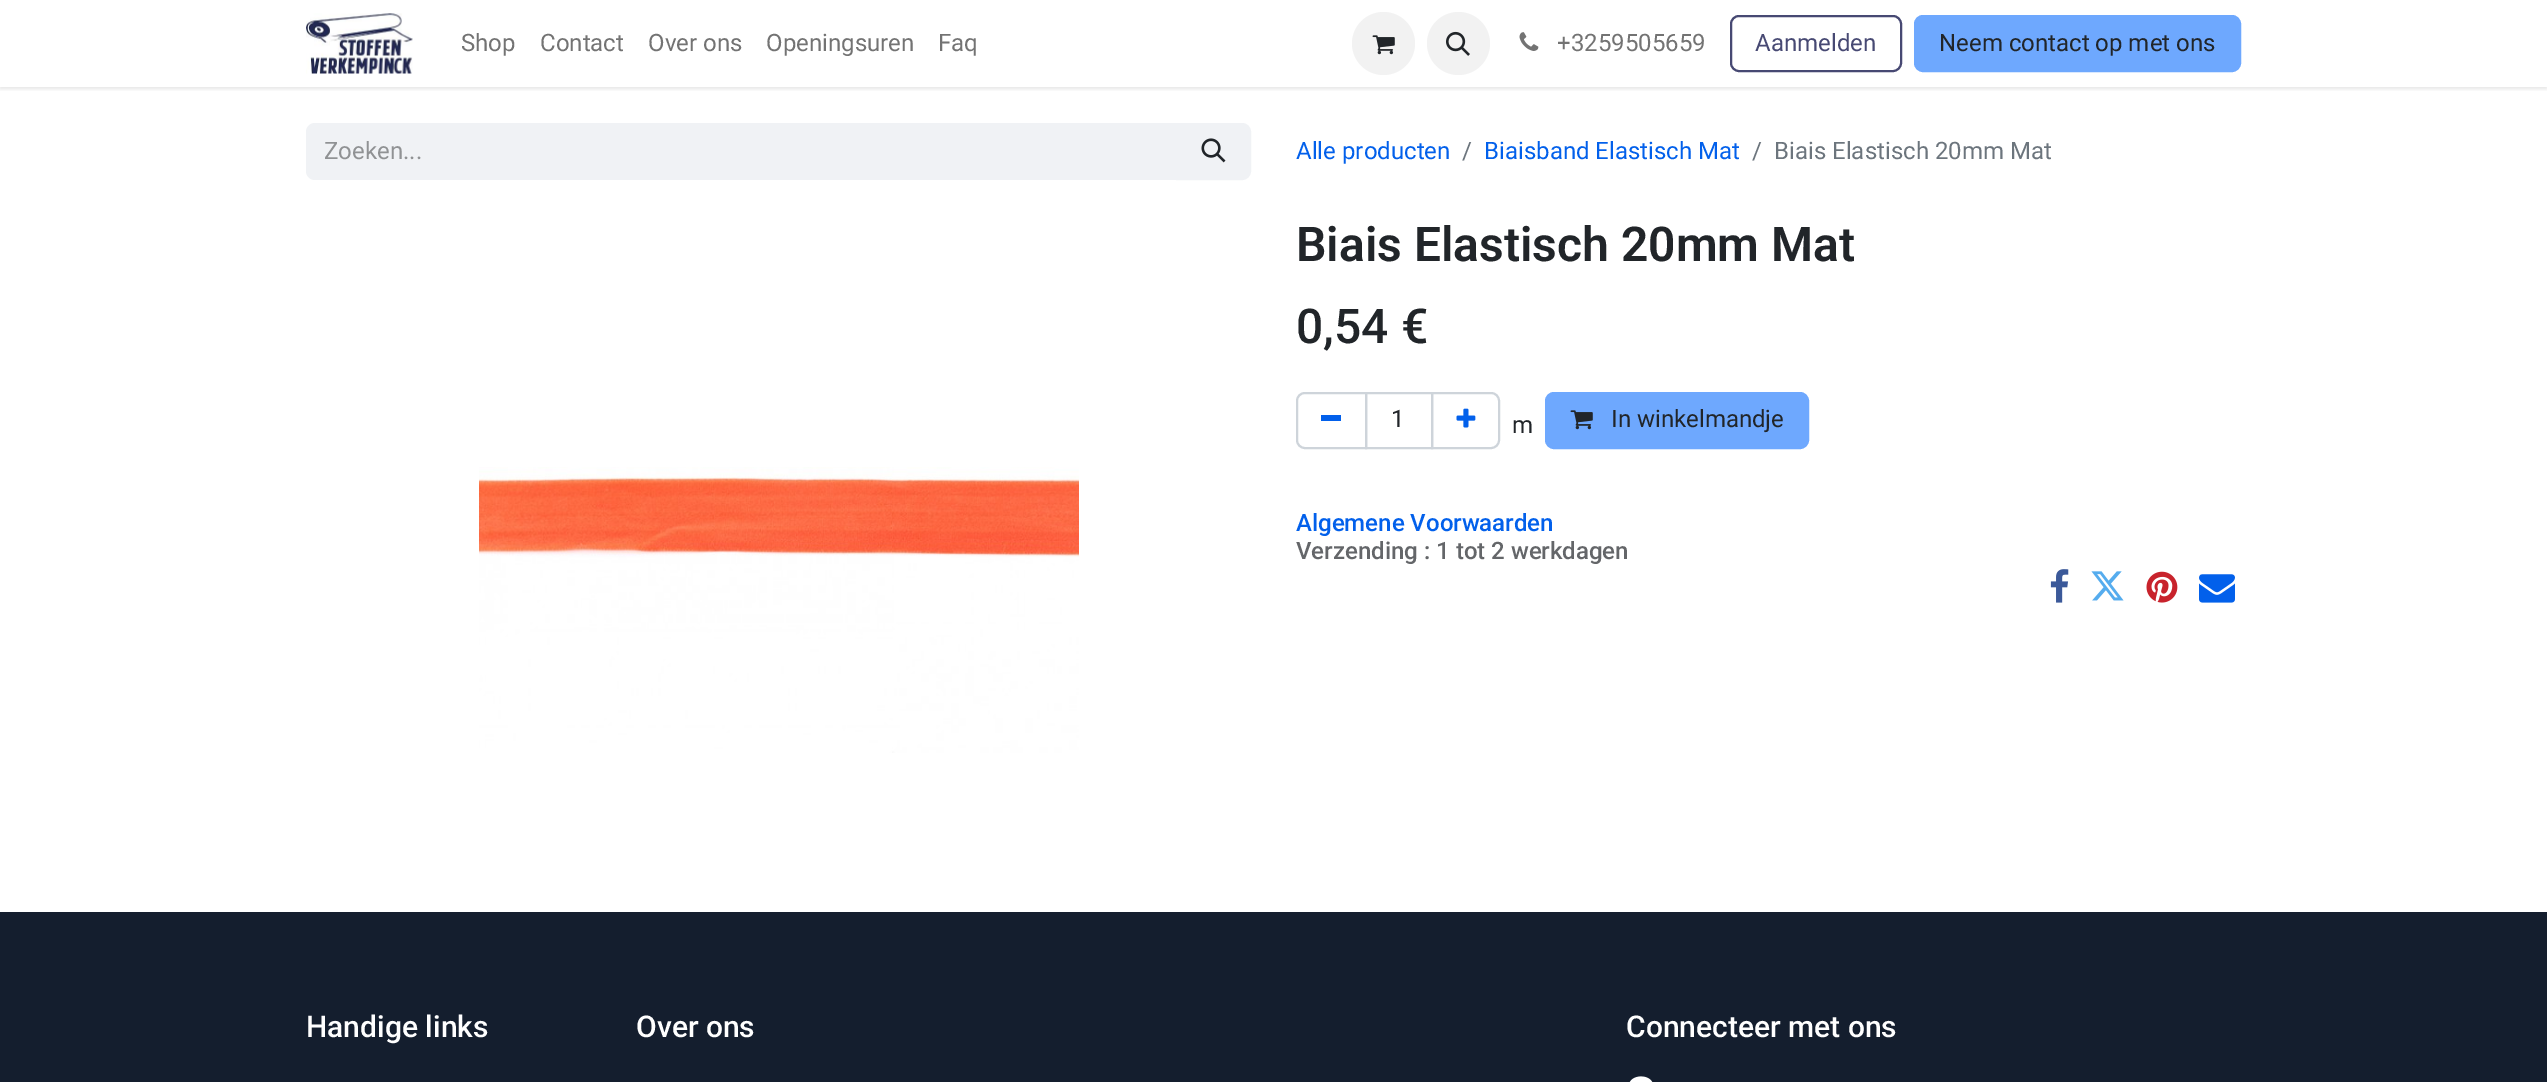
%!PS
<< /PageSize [2547 1082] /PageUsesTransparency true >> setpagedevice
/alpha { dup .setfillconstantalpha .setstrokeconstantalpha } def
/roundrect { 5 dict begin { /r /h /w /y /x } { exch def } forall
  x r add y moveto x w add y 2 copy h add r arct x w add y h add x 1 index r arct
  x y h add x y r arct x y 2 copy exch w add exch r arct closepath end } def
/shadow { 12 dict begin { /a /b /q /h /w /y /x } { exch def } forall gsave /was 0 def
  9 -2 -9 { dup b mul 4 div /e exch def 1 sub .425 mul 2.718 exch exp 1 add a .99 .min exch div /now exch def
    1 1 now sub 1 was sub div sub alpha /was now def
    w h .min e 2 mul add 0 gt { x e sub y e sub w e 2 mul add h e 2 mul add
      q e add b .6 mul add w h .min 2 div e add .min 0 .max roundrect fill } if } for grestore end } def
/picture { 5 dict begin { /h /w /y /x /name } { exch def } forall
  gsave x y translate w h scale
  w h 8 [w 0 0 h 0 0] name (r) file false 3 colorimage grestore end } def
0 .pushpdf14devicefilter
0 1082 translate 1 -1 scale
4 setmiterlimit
1 setgray
0 0 2547 1082 rectfill
gsave
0 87 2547 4 rectclip
0 setgray
0 2 2547 87 0 2 0.1 shadow
grestore
(img1.rgb) 306 13 107 61 picture
/Roboto-Regular [24 0 0 -24 0 0] selectfont
0.451 setgray
461 51 moveto (Shop) show
540 51 moveto (Contact) show
648 51 moveto (Over ons) show
766 51 moveto (Openingsuren) show
938 51 moveto (Faq) show
0.949 setgray
newpath 1383.5 43.5 31.5 0 360 arc closepath fill
(img2.rgb) 1372 35 23 20 picture
newpath 1458.5 43.5 31.5 0 360 arc closepath fill
(img3.rgb) 1446 31 24 25 picture
(img4.rgb) 1519 32 20 19 picture
0.451 setgray
1557 51 moveto (+3259505659) show
0.278 0.286 0.451 setrgbcolor
2 setlinewidth
1731 16 170 55 8 roundrect stroke
1755 51 moveto (Aanmelden) show
0.431 0.659 0.996 setrgbcolor
1915 16 325 55 8 roundrect gsave fill grestore
stroke
0.129 0.145 0.161 setrgbcolor
1939 51 moveto (Neem contact op met ons) show
0.941 0.949 0.961 setrgbcolor
newpath 315 123 moveto 1178 123 lineto 1178 180 lineto 315 180 lineto 310 180 306 176 306 171 curveto 306 132 lineto 306 127 310 123 315 123 curveto closepath fill
0.565 0.573 0.58 setrgbcolor
324 159 moveto (Zoeken...) show
0.941 0.949 0.961 setrgbcolor
newpath 1177 124 moveto 1242 124 lineto 1246.5 124 1250 127.5 1250 132 curveto 1250 171 lineto 1250 175.5 1246.5 179 1242 179 curveto 1177 179 lineto closepath gsave fill grestore
stroke
(img5.rgb) 1201 138 25 25 picture
0.008 0.376 0.922 setrgbcolor
1296 159 moveto (Alle producten) show
0.424 0.459 0.49 setrgbcolor
1462 159 moveto (/) show
0.008 0.376 0.922 setrgbcolor
1484 159 moveto (Biaisband Elastisch Mat) show
0.424 0.459 0.49 setrgbcolor
1752 159 moveto (/) show
1774 159 moveto (Biais Elastisch 20mm Mat) show
/Roboto-SemiBold [48 0 0 -48 0 0] selectfont
0.129 0.145 0.161 setrgbcolor
1296 261 moveto (Biais Elastisch 20mm Mat) show
/Roboto-Medium [48 0 0 -48 0 0] selectfont
1296 343 moveto (0,54 €) show
0.808 0.831 0.855 setrgbcolor
1366 393 66 55 rectstroke
newpath 1305 393 moveto 1366 393 lineto 1366 448 lineto 1305 448 lineto 1300.5 448 1297 444.5 1297 440 curveto 1297 401 lineto 1297 396.5 1300.5 393 1305 393 curveto closepath stroke
0.008 0.376 0.922 setrgbcolor
1321 415 20 6 rectfill
/Roboto-Regular [24 0 0 -24 0 0] selectfont
0.129 0.145 0.161 setrgbcolor
1391 427 moveto (1) show
0.808 0.831 0.855 setrgbcolor
newpath 1432 393 moveto 1491 393 lineto 1495.5 393 1499 396.5 1499 401 curveto 1499 440 lineto 1499 444.5 1495.5 448 1491 448 curveto 1432 448 lineto closepath stroke
(img6.rgb) 1456 408 20 20 picture
0.129 0.145 0.161 setrgbcolor
1512 433 moveto (m) show
0.431 0.659 0.996 setrgbcolor
1546 393 262 55 8 roundrect gsave fill grestore
stroke
(img7.rgb) 1570 410 23 20 picture
0.129 0.145 0.161 setrgbcolor
1611 427 moveto (In winkelmandje) show
/Roboto-Medium [24 0 0 -24 0 0] selectfont
0.008 0.376 0.922 setrgbcolor
1296 531 moveto (Algemene Voorwaarden) show
0.392 0.4 0.412 setrgbcolor
1296 559 moveto (Verzending : 1 tot 2 werkdagen) show
(img8.rgb) 2050 569 19 34 picture
(img9.rgb) 2091 571 33 30 picture
(img10.rgb) 2146 571 32 32 picture
(img11.rgb) 2199 574 36 29 picture
(img12.rgb) 479 467 600 286 picture
0.078 0.118 0.18 setrgbcolor
0 912 2547 170 rectfill
/Roboto-Medium [30 0 0 -30 0 0] selectfont
1 setgray
306 1037 moveto (Handige links) show
636 1037 moveto (Over ons) show
1626 1037 moveto (Connecteer met ons) show
(img13.rgb) 1629 1076 24 6 picture
.poppdf14devicefilter showpage
